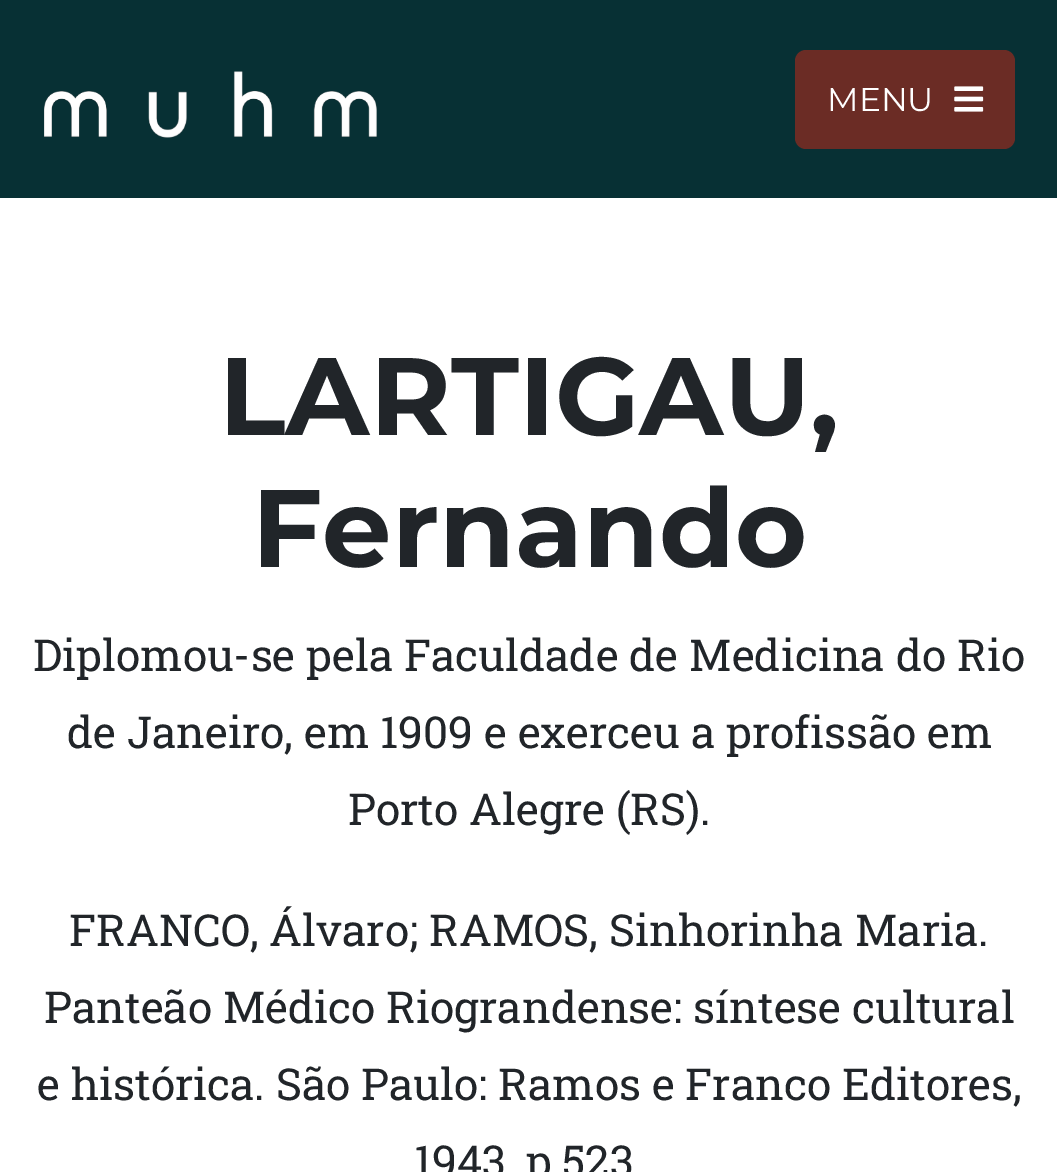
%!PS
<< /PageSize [1057 1172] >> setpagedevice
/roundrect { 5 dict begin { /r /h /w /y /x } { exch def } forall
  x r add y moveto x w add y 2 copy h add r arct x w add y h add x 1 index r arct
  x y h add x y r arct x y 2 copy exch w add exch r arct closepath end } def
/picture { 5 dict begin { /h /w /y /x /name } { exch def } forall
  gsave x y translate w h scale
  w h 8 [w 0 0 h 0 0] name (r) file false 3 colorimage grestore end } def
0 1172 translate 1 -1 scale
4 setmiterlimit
1 setgray
0 0 1057 1172 rectfill
0.027 0.188 0.204 setrgbcolor
0 0 1057 198 rectfill
(img1.rgb) 44 71 333 67 picture
0.42 0.173 0.145 setrgbcolor
795 50 220 99 11 roundrect fill
/Montserrat-Regular [33 0 0 -33 0 0] selectfont
1 setgray
827 111 moveto (MENU) show
(img2.rgb) 954 86 30 26 picture
/Montserrat-Bold [110 0 0 -110 0 0] selectfont
0.129 0.145 0.161 setrgbcolor
219 435 moveto (LARTIGAU,) show
252 567 moveto (Fernando) show
/RobotoSlab-Regular [44 0 0 -44 0 0] selectfont
33 671 moveto (Diplomou-se pela Faculdade de Medicina do Rio) show
67 748 moveto (de Janeiro, em 1909 e exerceu a profissão em) show
348 825 moveto (Porto Alegre \(RS\).) show
69 946 moveto (FRANCO, Álvaro; RAMOS, Sinhorinha Maria.) show
44 1023 moveto (Panteão Médico Riograndense: síntese cultural) show
37 1100 moveto (e histórica. São Paulo: Ramos e Franco Editores,) show
414 1177 moveto (1943, p.523) show
showpage
